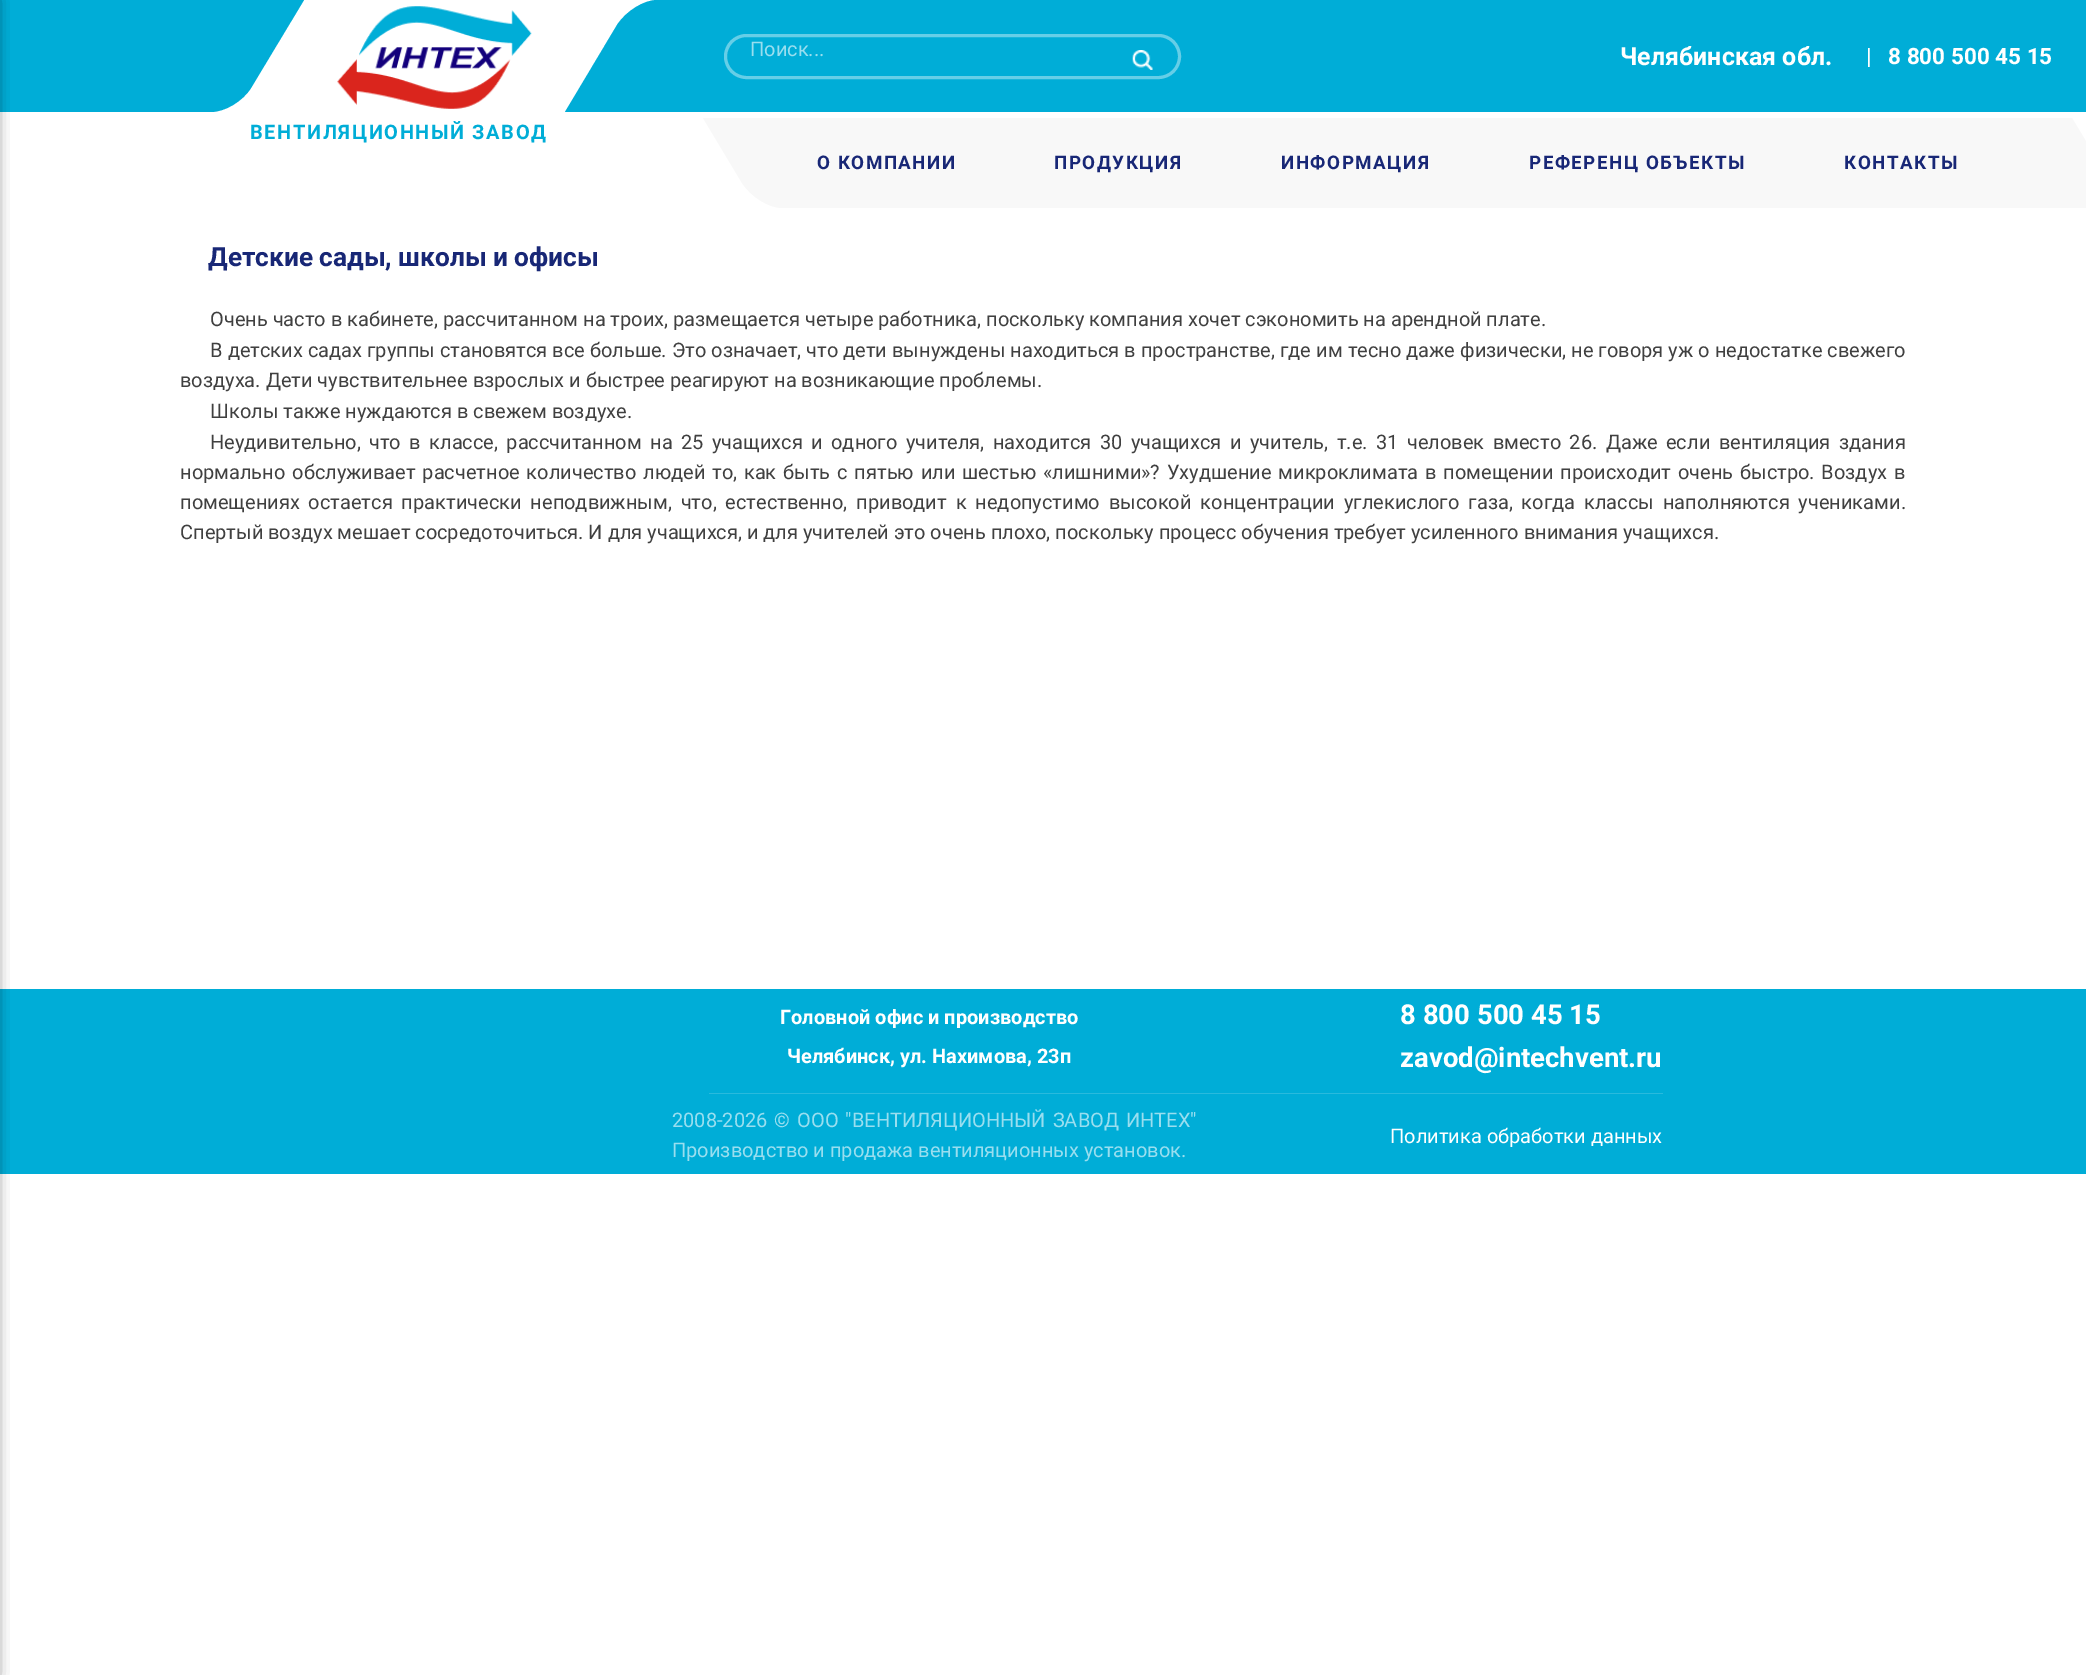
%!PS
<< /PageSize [2086 1675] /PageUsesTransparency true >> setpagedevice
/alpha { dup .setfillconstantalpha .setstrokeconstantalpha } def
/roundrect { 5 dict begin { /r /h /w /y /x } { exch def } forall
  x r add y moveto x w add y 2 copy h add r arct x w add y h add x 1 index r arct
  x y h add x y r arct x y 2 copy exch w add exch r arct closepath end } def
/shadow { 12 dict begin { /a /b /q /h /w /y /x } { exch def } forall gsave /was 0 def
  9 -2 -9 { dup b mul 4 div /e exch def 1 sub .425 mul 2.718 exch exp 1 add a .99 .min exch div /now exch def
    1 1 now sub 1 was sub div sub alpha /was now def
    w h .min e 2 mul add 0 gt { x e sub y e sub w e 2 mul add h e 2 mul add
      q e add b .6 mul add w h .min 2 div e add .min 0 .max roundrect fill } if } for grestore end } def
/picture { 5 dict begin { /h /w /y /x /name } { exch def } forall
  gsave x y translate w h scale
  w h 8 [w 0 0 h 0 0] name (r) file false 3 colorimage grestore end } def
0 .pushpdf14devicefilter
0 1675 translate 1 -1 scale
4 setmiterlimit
1 setgray
0 0 2086 1675 rectfill
0 0.678 0.843 setrgbcolor
newpath -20 0 moveto 304 0 lineto 251 88 lineto 243 101 225 112 211 112 curveto -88 112 lineto closepath fill
0 989 2086 185 rectfill
0 setgray
-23 0 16 1675 0 7.5 1 shadow
0 0.678 0.843 setrgbcolor
newpath 657 0 moveto 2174 0 lineto 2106 112 lineto 565 112 lineto 617 25 lineto 626 11 644 0 657 0 curveto closepath fill
0.4 0.808 0.906 setrgbcolor
3 setlinewidth
725.5 35.5 454 42 21 roundrect stroke
/Roboto-Regular [20 0 0 -20 0 0] selectfont
0.6 0.871 0.937 setrgbcolor
750 56 moveto (Поиск...) show
(img1.rgb) 1132 50 21 20 picture
/Roboto-Bold [25 0 0 -25 0 0] selectfont
1 setgray
1620 65 moveto (Челябинская обл.) show
/Roboto-Bold [22.5 0 0 -22.5 0 0] selectfont
1866 64 moveto (|) show
1888 64 moveto (8 800 500 45 15) show
(img2.rgb) 337 6 195 103 picture
/Roboto-Bold [20 0 0 -20 0 0] selectfont
0 0.678 0.843 setrgbcolor
250 139 moveto 1.6 0 (ВЕНТИЛЯЦИОННЫЙ ЗАВОД) ashow
0.973 setgray
newpath 703 118 moveto 2072 118 lineto 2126 208 lineto 782 208 lineto 769 208 751 197 742 183 curveto closepath fill
/Roboto-Bold [18.75 0 0 -18.75 0 0] selectfont
0.094 0.153 0.463 setrgbcolor
817 169 moveto 1.5 0 (О КОМПАНИИ) ashow
1054 169 moveto 1.5 0 (ПРОДУКЦИЯ) ashow
1281 169 moveto 1.5 0 (ИНФОРМАЦИЯ) ashow
1529 169 moveto 1.5 0 (РЕФЕРЕНЦ ОБЪЕКТЫ) ashow
1844 169 moveto 1.5 0 (КОНТАКТЫ) ashow
/Roboto-Bold [26.25 0 0 -26.25 0 0] selectfont
208 266 moveto (Детские сады, школы и офисы) show
/Roboto-Regular [20 0 0 -20 0 0] selectfont
0.251 setgray
210 326 moveto (Очень часто в кабинете, рассчитанном на троих, размещается четыре работника, поскольку компания хочет сэкономить на арендной плате.) show
210 357 moveto 0.1 0 32 (В детских садах группы становятся все больше. Это означает, что дети вынуждены находиться в пространстве, где им тесно даже физически, не говоря уж о недостатке свежего) widthshow
180 387 moveto (воздуха. Дети чувствительнее взрослых и быстрее реагируют на возникающие проблемы.) show
210 418 moveto (Школы также нуждаются в свежем воздухе.) show
210 449 moveto 3.5 0 32 (Неудивительно, что в классе, рассчитанном на 25 учащихся и одного учителя, находится 30 учащихся и учитель, т.е. 31 человек вместо 26. Даже если вентиляция здания) widthshow
180 479 moveto 1.9 0 32 (нормально обслуживает расчетное количество людей то, как быть с пятью или шестью «лишними»? Ухудшение микроклимата в помещении происходит очень быстро. Воздух в) widthshow
180 509 moveto 4 0 32 (помещениях остается практически неподвижным, что, естественно, приводит к недопустимо высокой концентрации углекислого газа, когда классы наполняются учениками.) widthshow
180 539 moveto (Спертый воздух мешает сосредоточиться. И для учащихся, и для учителей это очень плохо, поскольку процесс обучения требует усиленного внимания учащихся.) show
0.161 0.729 0.867 setrgbcolor
709 1093 954 1 rectfill
/Roboto-Bold [20 0 0 -20 0 0] selectfont
1 setgray
780 1024 moveto (Головной офис и производство) show
787 1063 moveto (Челябинск, ул. Нахимова, 23п) show
/Roboto-Bold [27.5 0 0 -27.5 0 0] selectfont
1400 1024 moveto (8 800 500 45 15) show
1400 1067 moveto (zavod@intechvent.ru) show
/Roboto-Regular [20 0 0 -20 0 0] selectfont
0.6 0.871 0.937 setrgbcolor
672 1127 moveto 2 0 32 (2008-2026 © ООО "ВЕНТИЛЯЦИОННЫЙ ЗАВОД ИНТЕХ") widthshow
672 1157 moveto (Производство и продажа вентиляционных установок.) show
1 setgray
1390 1143 moveto (Политика обработки данных) show
.poppdf14devicefilter showpage
